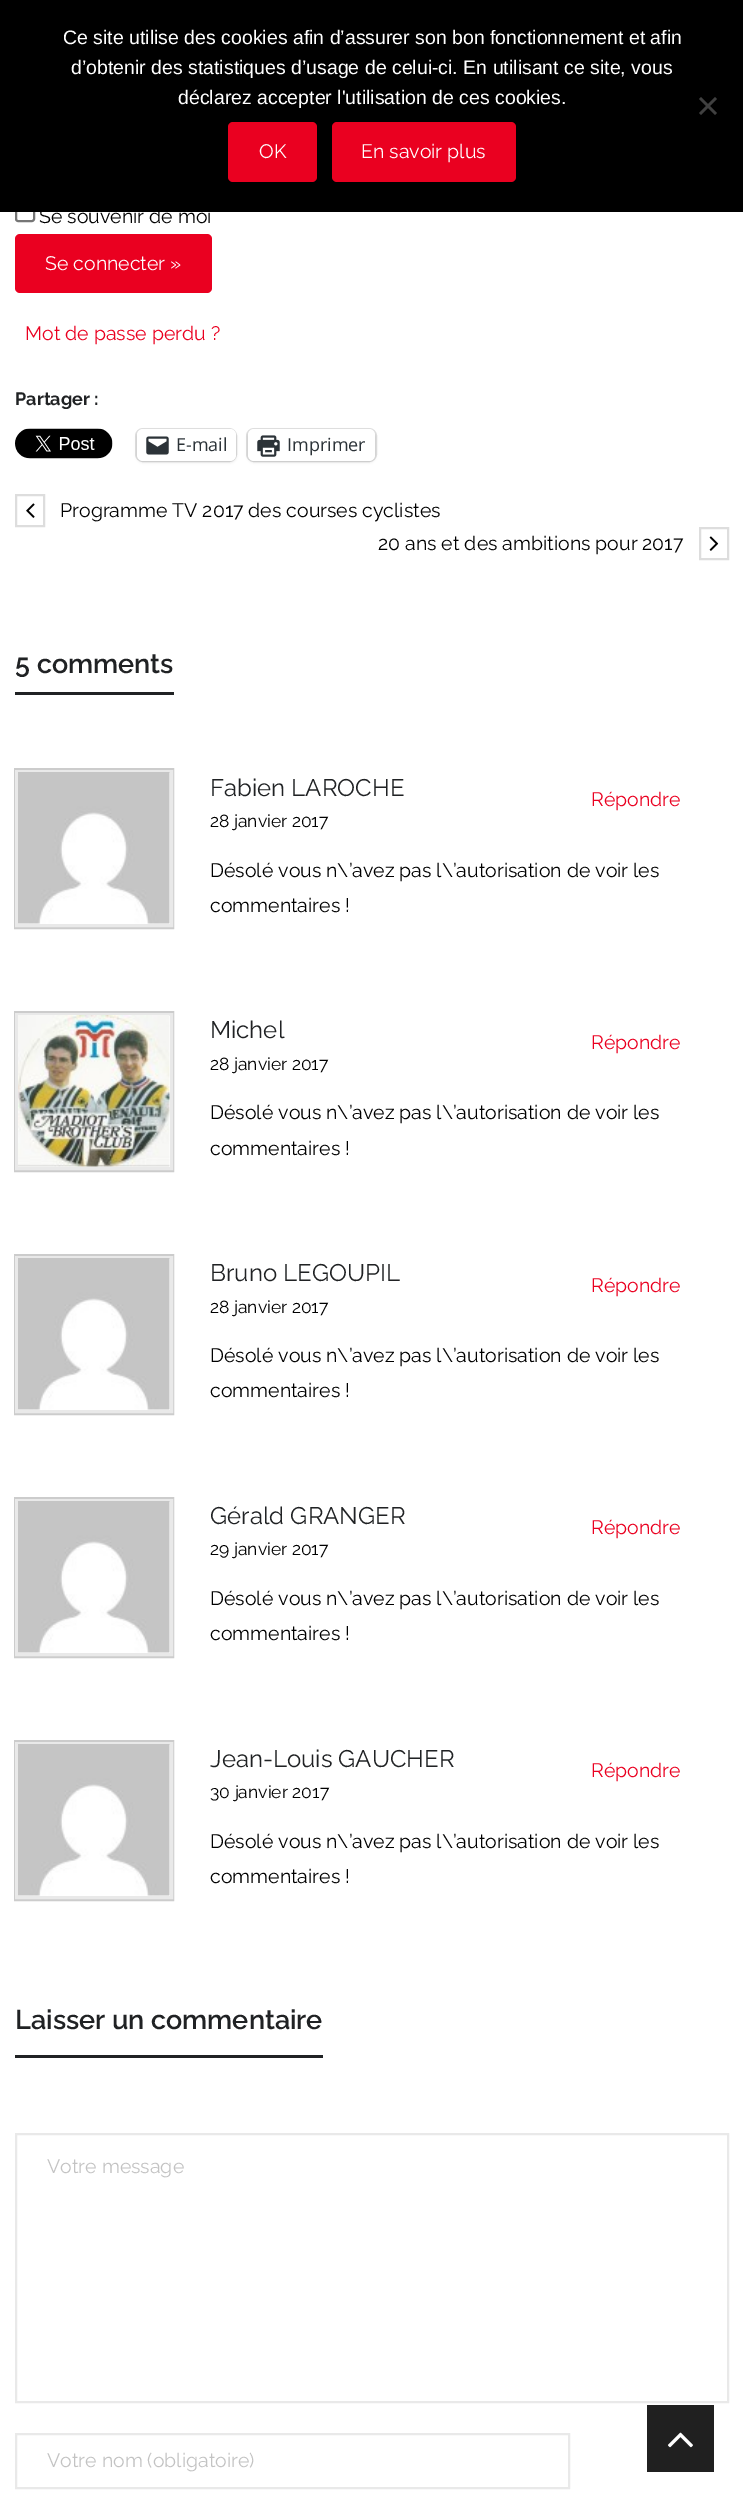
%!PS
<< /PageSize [743 2502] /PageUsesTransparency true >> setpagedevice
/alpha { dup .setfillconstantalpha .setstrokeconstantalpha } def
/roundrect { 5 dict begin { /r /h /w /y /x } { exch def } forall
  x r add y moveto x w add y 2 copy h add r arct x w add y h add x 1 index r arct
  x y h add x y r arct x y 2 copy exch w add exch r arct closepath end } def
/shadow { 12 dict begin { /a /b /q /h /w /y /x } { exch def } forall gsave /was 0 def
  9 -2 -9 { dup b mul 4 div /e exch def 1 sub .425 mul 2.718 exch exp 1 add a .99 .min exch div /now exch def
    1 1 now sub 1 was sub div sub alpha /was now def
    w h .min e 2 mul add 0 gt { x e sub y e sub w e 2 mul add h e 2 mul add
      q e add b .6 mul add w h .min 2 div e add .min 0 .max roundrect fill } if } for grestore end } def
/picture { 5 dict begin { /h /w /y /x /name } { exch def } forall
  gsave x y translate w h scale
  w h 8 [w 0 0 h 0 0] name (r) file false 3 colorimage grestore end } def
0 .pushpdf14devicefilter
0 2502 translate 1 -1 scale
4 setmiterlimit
1 setgray
0 0 743 2502 rectfill
0.463 setgray
2 setlinewidth
16 204 18 17 2 roundrect stroke
0 setgray
0 0 743 212 rectfill
/LiberationSans-Regular [19.5 0 0 -19.5 0 0] selectfont
1 setgray
63 44 moveto (Ce site utilise des cookies afin d’assurer son bon fonctionnement et afin) show
71 74 moveto (d’obtenir des statistiques d’usage de celui-ci. En utilisant ce site, vous) show
178 104 moveto (déclarez accepter l'utilisation de ces cookies.) show
0.251 setgray
newpath 715 97 moveto 717 99 lineto 701 115 lineto 699 113 lineto closepath fill
newpath 699 99 moveto 701 97 lineto 717 113 lineto 715 115 lineto closepath fill
0.918 0 0.125 setrgbcolor
228 122 89 60 5 roundrect fill
/Raleway-Regular [19.5 0 0 -19.5 0 0] selectfont
1 setgray
259 158 moveto (OK) show
0.918 0 0.125 setrgbcolor
332 122 184 60 5 roundrect fill
1 setgray
361 158 moveto (En savoir plus) show
0 setgray
39 223 moveto (Se souvenir de moi) show
0.918 0 0.125 setrgbcolor
15 234 197 59 5 roundrect fill
1 setgray
45 270 moveto (Se connecter ») show
0.918 0 0.125 setrgbcolor
25 340 moveto (Mot de passe perdu ?) show
/Raleway-Bold [18 0 0 -18 0 0] selectfont
0.125 0.133 0.141 setrgbcolor
15 405 moveto (Partager :) show
(img1.rgb) 15 428 98 31 picture
0.878 setgray
136 429 100 32 7 roundrect stroke
0 setgray
137 431 99 31 6 1.5 0.12 shadow
1 setgray
137 429 99 32 6 roundrect fill
(img2.rgb) 146 436 23 19 picture
/OpenSans-Regular [18 0 0 -18 0 0] selectfont
0.173 0.2 0.22 setrgbcolor
176 451 moveto (E-mail) show
0.878 setgray
247 429 129 32 7 roundrect stroke
0 setgray
248 431 127 31 6 1.5 0.12 shadow
1 setgray
248 429 127 32 6 roundrect fill
(img3.rgb) 257 435 23 22 picture
0.173 0.2 0.22 setrgbcolor
287 451 moveto (Imprimer) show
0.867 setgray
16 495 28 31 rectstroke
(img4.rgb) 26 503 9 15 picture
/Raleway-Regular [19.5 0 0 -19.5 0 0] selectfont
0 setgray
60 517 moveto (Programme TV 2017 des courses cyclistes) show
378 550 moveto (20 ans et des ambitions pour 2017) show
0.867 setgray
700 528 28 31 rectstroke
(img5.rgb) 709 536 10 15 picture
0.125 0.133 0.141 setrgbcolor
15 692 159 3 rectfill
/Raleway-SemiBold [27 0 0 -27 0 0] selectfont
15 673 moveto (5 comments) show
0.8 setgray
15 769 158 159 rectstroke
0.914 setgray
3 setlinewidth
16.5 771.5 155 154 rectstroke
(img6.rgb) 18 772 152 152 picture
/Raleway-Regular [24 0 0 -24 0 0] selectfont
0.125 0.133 0.141 setrgbcolor
210 796 moveto (Fabien LAROCHE) show
/Raleway-Regular [19.5 0 0 -19.5 0 0] selectfont
0.918 0 0.125 setrgbcolor
591 806 moveto (Répondre) show
/Raleway-Regular [17.5 0 0 -17.5 0 0] selectfont
0 setgray
210 827 moveto (28 janvier 2017) show
/Raleway-Regular [19.5 0 0 -19.5 0 0] selectfont
210 877 moveto (Désolé vous n\\’avez pas l\\’autorisation de voir les) show
210 912 moveto (commentaires !) show
0.8 setgray
2 setlinewidth
15 1012 158 159 rectstroke
0.914 setgray
3 setlinewidth
16.5 1014.5 155 154 rectstroke
(img7.rgb) 18 1015 152 152 picture
/Raleway-Regular [24 0 0 -24 0 0] selectfont
0.125 0.133 0.141 setrgbcolor
210 1038 moveto (Michel) show
/Raleway-Regular [19.5 0 0 -19.5 0 0] selectfont
0.918 0 0.125 setrgbcolor
591 1049 moveto (Répondre) show
/Raleway-Regular [17.5 0 0 -17.5 0 0] selectfont
0 setgray
210 1070 moveto (28 janvier 2017) show
/Raleway-Regular [19.5 0 0 -19.5 0 0] selectfont
210 1119 moveto (Désolé vous n\\’avez pas l\\’autorisation de voir les) show
210 1155 moveto (commentaires !) show
0.8 setgray
2 setlinewidth
15 1255 158 159 rectstroke
0.914 setgray
3 setlinewidth
16.5 1257.5 155 154 rectstroke
(img6.rgb) 18 1258 152 152 picture
/Raleway-Regular [24 0 0 -24 0 0] selectfont
0.125 0.133 0.141 setrgbcolor
210 1281 moveto (Bruno LEGOUPIL) show
/Raleway-Regular [19.5 0 0 -19.5 0 0] selectfont
0.918 0 0.125 setrgbcolor
591 1292 moveto (Répondre) show
/Raleway-Regular [17.5 0 0 -17.5 0 0] selectfont
0 setgray
210 1313 moveto (28 janvier 2017) show
/Raleway-Regular [19.5 0 0 -19.5 0 0] selectfont
210 1362 moveto (Désolé vous n\\’avez pas l\\’autorisation de voir les) show
210 1397 moveto (commentaires !) show
0.8 setgray
2 setlinewidth
15 1498 158 159 rectstroke
0.914 setgray
3 setlinewidth
16.5 1500.5 155 154 rectstroke
(img6.rgb) 18 1501 152 152 picture
/Raleway-Regular [24 0 0 -24 0 0] selectfont
0.125 0.133 0.141 setrgbcolor
210 1524 moveto (Gérald GRANGER) show
/Raleway-Regular [19.5 0 0 -19.5 0 0] selectfont
0.918 0 0.125 setrgbcolor
591 1534 moveto (Répondre) show
/Raleway-Regular [17.5 0 0 -17.5 0 0] selectfont
0 setgray
210 1555 moveto (29 janvier 2017) show
/Raleway-Regular [19.5 0 0 -19.5 0 0] selectfont
210 1605 moveto (Désolé vous n\\’avez pas l\\’autorisation de voir les) show
210 1640 moveto (commentaires !) show
0.8 setgray
2 setlinewidth
15 1741 158 159 rectstroke
0.914 setgray
3 setlinewidth
16.5 1743.5 155 154 rectstroke
(img6.rgb) 18 1744 152 152 picture
/Raleway-Regular [24 0 0 -24 0 0] selectfont
0.125 0.133 0.141 setrgbcolor
210 1767 moveto (Jean-Louis GAUCHER) show
/Raleway-Regular [19.5 0 0 -19.5 0 0] selectfont
0.918 0 0.125 setrgbcolor
591 1777 moveto (Répondre) show
/Raleway-Regular [17.5 0 0 -17.5 0 0] selectfont
0 setgray
210 1798 moveto (30 janvier 2017) show
/Raleway-Regular [19.5 0 0 -19.5 0 0] selectfont
210 1848 moveto (Désolé vous n\\’avez pas l\\’autorisation de voir les) show
210 1883 moveto (commentaires !) show
0.125 0.133 0.141 setrgbcolor
15 2055 308 3 rectfill
/Raleway-SemiBold [27 0 0 -27 0 0] selectfont
15 2029 moveto (Laisser un commentaire) show
0.914 setgray
2 setlinewidth
16 2134 712 268 rectstroke
/Raleway-Regular [19.5 0 0 -19.5 0 0] selectfont
0.765 setgray
47 2173 moveto (Votre message) show
0.914 setgray
16 2434 553 54 rectstroke
0.765 setgray
47 2467 moveto (Votre nom \(obligatoire\)) show
0.125 setgray
647 2405 67 67 rectfill
(img8.rgb) 668 2432 25 16 picture
.poppdf14devicefilter showpage
